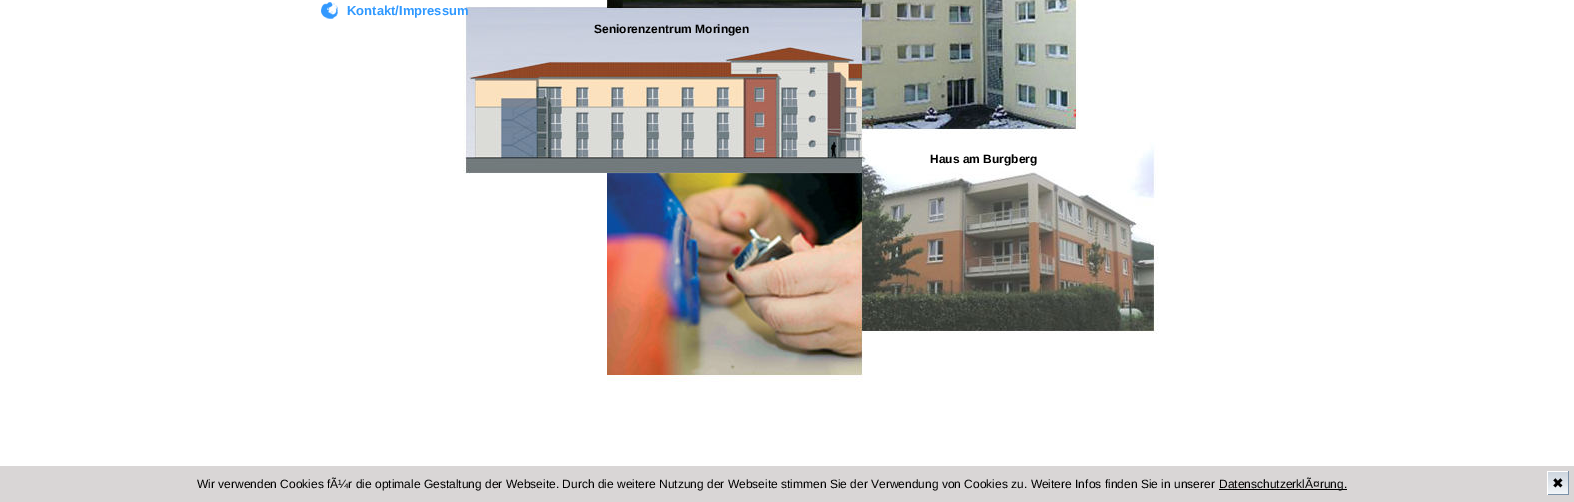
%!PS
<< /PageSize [1574 502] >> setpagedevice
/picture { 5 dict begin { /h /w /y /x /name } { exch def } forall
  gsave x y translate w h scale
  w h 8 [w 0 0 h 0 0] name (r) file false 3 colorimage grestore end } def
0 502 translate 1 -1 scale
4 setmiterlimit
1 setgray
0 0 1574 502 rectfill
(img1.rgb) 463 0 696 382 picture
(img2.rgb) 321 2 17 17 picture
/LiberationSans-Bold [13 0 0 -13 0 0] selectfont
0.184 0.6 1 setrgbcolor
347 15 moveto (Kontakt/Impressum) show
/LiberationSans-Bold [12 0 0 -12 0 0] selectfont
0 setgray
594 33 moveto (Seniorenzentrum Moringen) show
930 163 moveto (Haus am Burgberg) show
0.851 0.839 0.839 setrgbcolor
0 466 1574 36 rectfill
/LiberationSans-Regular [12 0 0 -12 0 0] selectfont
0 setgray
197 488 moveto (Wir verwenden Cookies fÃ¼r die optimale Gestaltung der Webseite. Durch die weitere Nutzung der Webseite stimmen Sie der Verwendung von Cookies zu. Weitere Infos finden Sie in unserer) show
1219 489 128 1 rectfill
1219 488 moveto (DatenschutzerklÃ¤rung.) show
gsave newpath 1548 472 moveto 1568 472 lineto 1568 494 lineto 1548 494 lineto closepath clip newpath
<< /ShadingType 2 /ColorSpace /DeviceRGB /Coords [1548 472 1548 494] /Extend [true true] /Function << /FunctionType 2 /Domain [0 1] /C0 [0.808 0.839 0.875] /C1 [0.949 0.965 0.976] /N 1 >> >> shfill grestore
1 setgray
1547 471 22 1 rectfill
0.482 0.573 0.663 setrgbcolor
1568 471 1 24 rectfill
1547 494 22 1 rectfill
1 setgray
1547 471 1 24 rectfill
/DejaVuSans-Regular [14 0 0 -14 0 0] selectfont
0 setgray
1552 488 moveto (✖) show
showpage
